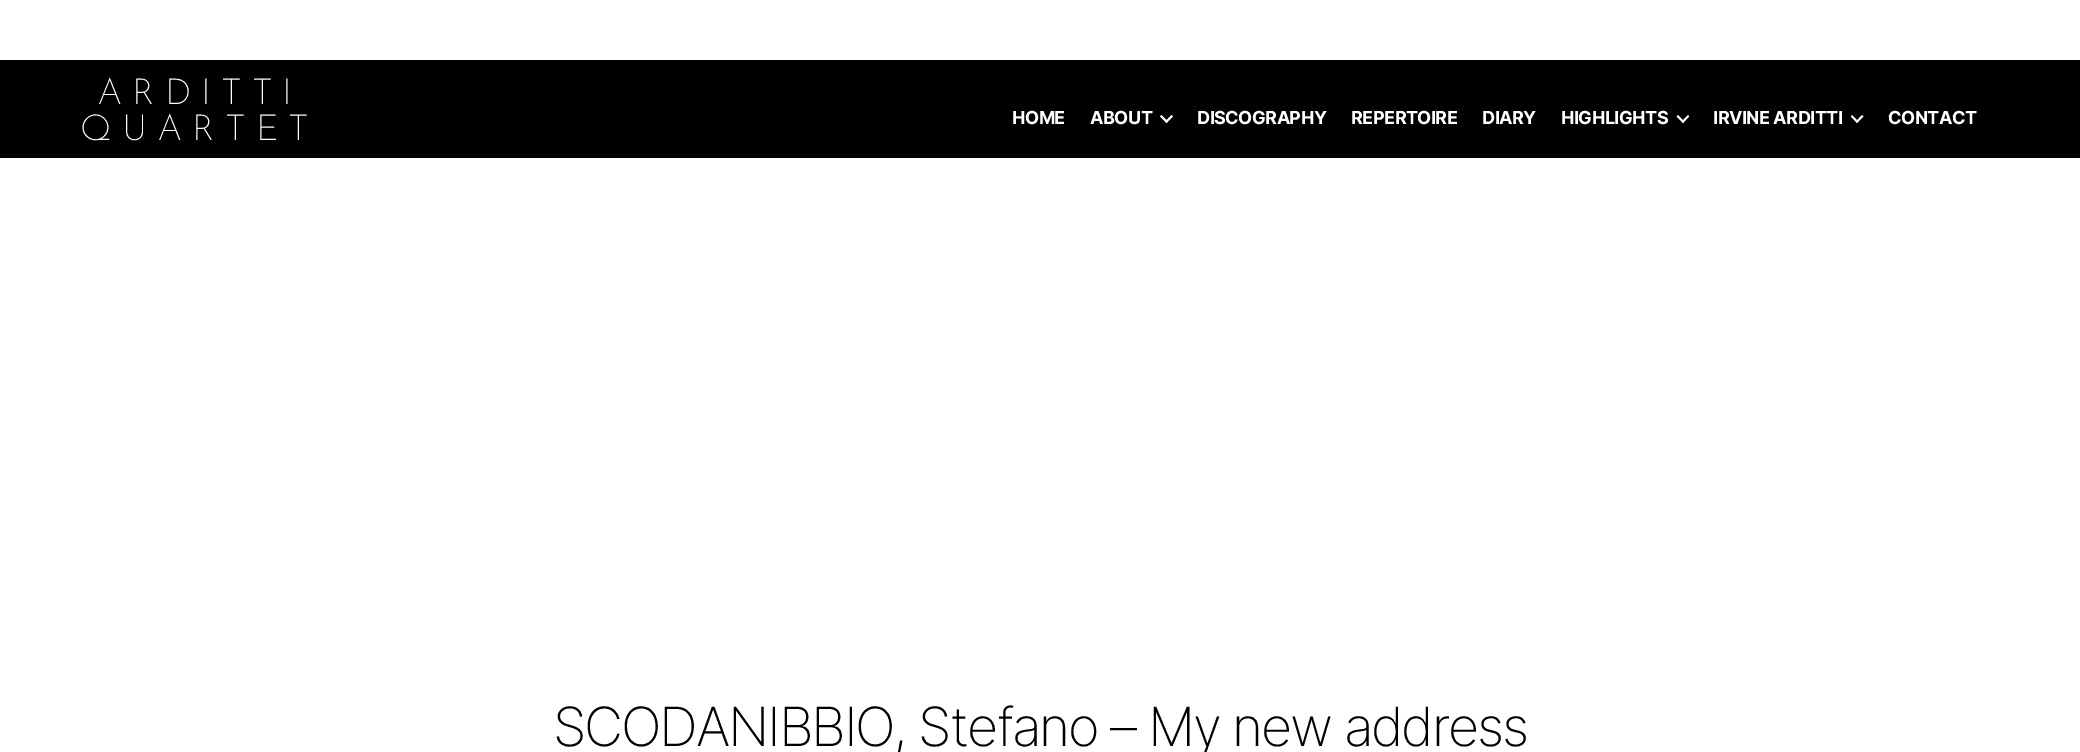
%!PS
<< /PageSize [2080 752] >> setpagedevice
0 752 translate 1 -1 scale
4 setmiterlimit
1 setgray
0 0 2080 752 rectfill
0 setgray
0 60 2080 98 rectfill
/JosefinSans-ExtraLight [36 0 0 -36 0 0] selectfont
1 setgray
97 104 moveto 10 0 (ARDITTI) ashow
80 140 moveto 10 0 (QUARTET) ashow
/Inter-Bold [18 0 0 -18 0 0] selectfont
1012 124 moveto -0.5 0 (HOME) ashow
1090 124 moveto -0.5 0 (ABOUT) ashow
newpath 1160 116.5 moveto 1161.5 115 lineto 1168 121.5 lineto 1166.5 123 lineto closepath fill
newpath 1165 121.5 moveto 1171.5 115 lineto 1173 116.5 lineto 1166.5 123 lineto closepath fill
1197 124 moveto -0.5 0 (DISCOGRAPHY) ashow
1351 124 moveto -0.5 0 (REPERTOIRE) ashow
1482 124 moveto -0.5 0 (DIARY) ashow
1561 124 moveto -0.5 0 (HIGHLIGHTS) ashow
newpath 1676.5 116.5 moveto 1678 115 lineto 1684 121.5 lineto 1683 123 lineto closepath fill
newpath 1681.5 121.5 moveto 1688 115 lineto 1689 116.5 lineto 1683 123 lineto closepath fill
1713 124 moveto -0.5 0 (IRVINE ARDITTI) ashow
newpath 1851 116.5 moveto 1852 115 lineto 1858.5 121.5 lineto 1857 123 lineto closepath fill
newpath 1856 121.5 moveto 1862 115 lineto 1863.5 116.5 lineto 1857 123 lineto closepath fill
1888 124 moveto -0.5 0 (CONTACT) ashow
/Inter-ExtraLight [54 0 0 -54 0 0] selectfont
0 setgray
553 746 moveto -2.25 0 (SCODANIBBIO, Stefano – My new address) ashow
showpage
